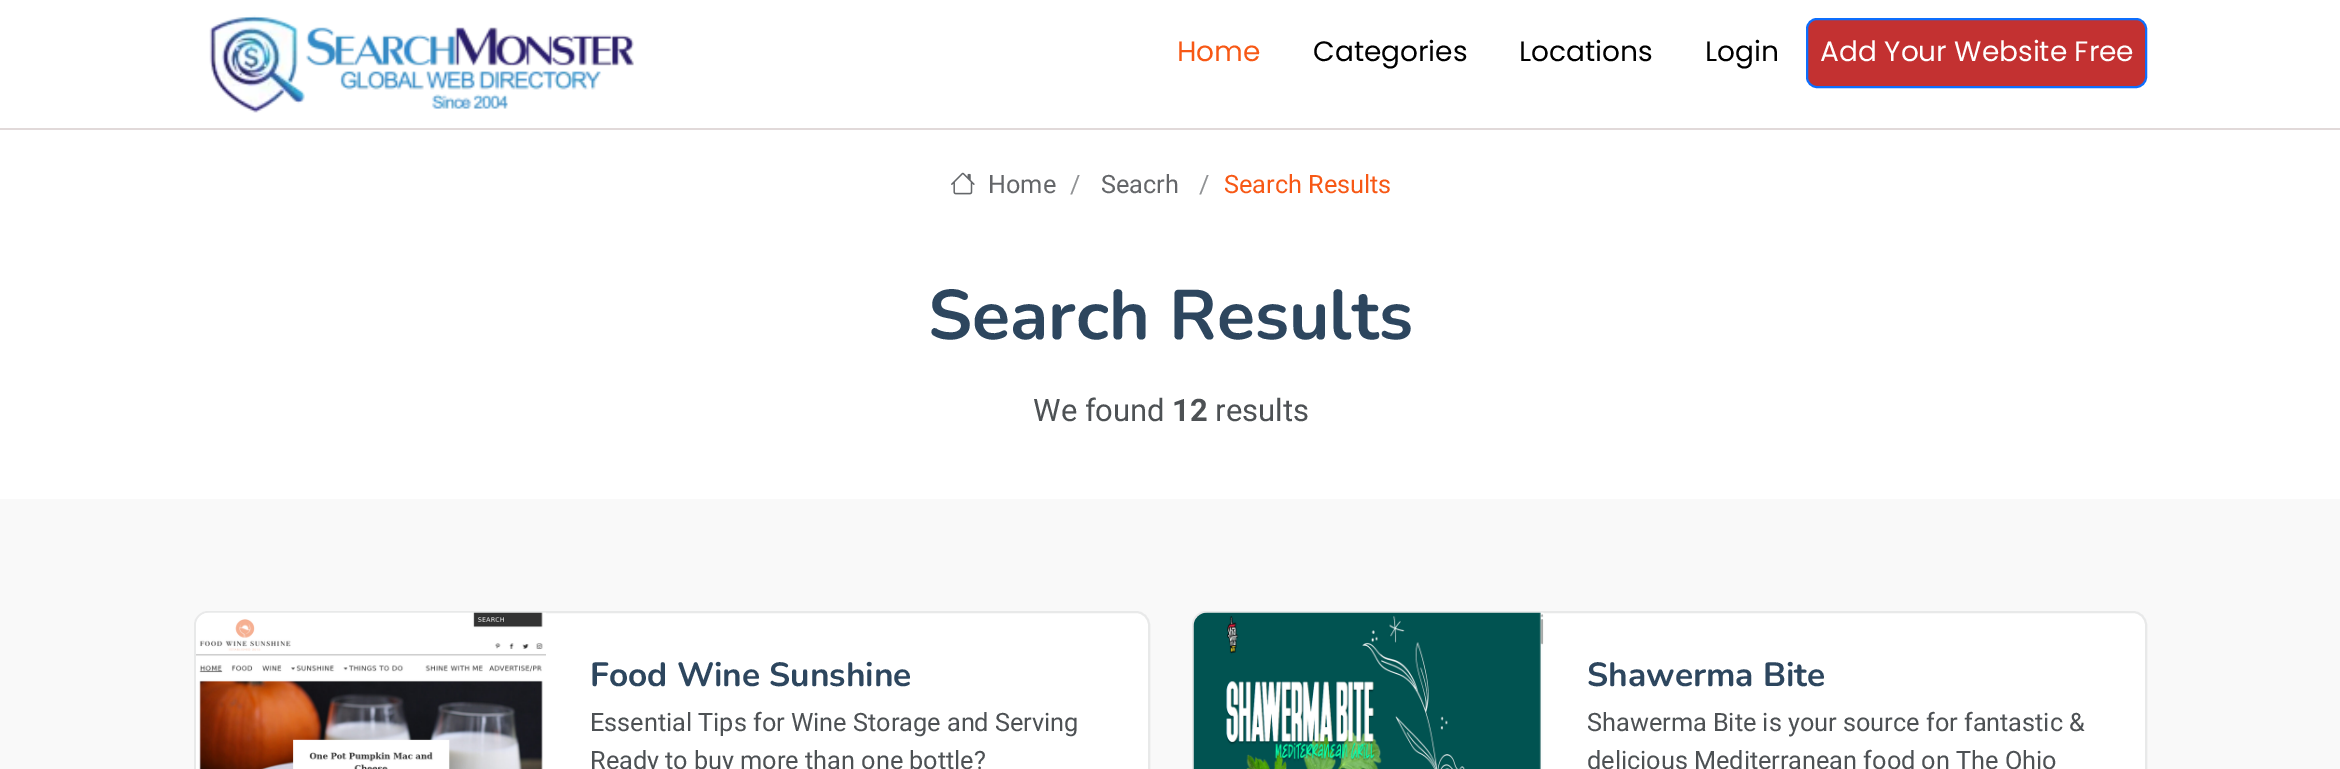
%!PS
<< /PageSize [2340 769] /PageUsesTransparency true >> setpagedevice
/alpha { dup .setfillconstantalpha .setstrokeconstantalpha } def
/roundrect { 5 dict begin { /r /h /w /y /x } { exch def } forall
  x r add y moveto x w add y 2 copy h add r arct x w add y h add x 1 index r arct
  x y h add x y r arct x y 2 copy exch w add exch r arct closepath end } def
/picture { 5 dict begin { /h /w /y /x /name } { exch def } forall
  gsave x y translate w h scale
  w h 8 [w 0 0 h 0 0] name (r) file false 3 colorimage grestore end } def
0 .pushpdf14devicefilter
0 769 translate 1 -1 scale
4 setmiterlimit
1 setgray
0 0 2340 769 rectfill
0.882 0.851 0.851 setrgbcolor
0 128 2340 2 rectfill
(img1.rgb) 209 15 425 98 picture
/Poppins-Regular [28 0 0 -28 0 0] selectfont
0.969 0.345 0.082 setrgbcolor
1177 61 moveto (Home) show
0 setgray
1313 61 moveto (Categories) show
1519 61 moveto (Locations) show
1705 61 moveto (Login) show
0.765 0.192 0.192 setrgbcolor
1807 19 339 68 10 roundrect gsave fill grestore
0.051 0.431 0.992 setrgbcolor
2 setlinewidth
stroke
1 setgray
1820 61 moveto (Add Your Website Free) show
(img2.rgb) 951 172 24 23 picture
/Roboto-Regular [25.25 0 0 -25.25 0 0] selectfont
0.392 0.4 0.412 setrgbcolor
988 193 moveto (Home) show
0.565 0.573 0.58 setrgbcolor
1070 193 moveto (/) show
0.392 0.4 0.412 setrgbcolor
1101 193 moveto (Seacrh) show
0.565 0.573 0.58 setrgbcolor
1199 193 moveto (/) show
0.969 0.345 0.082 setrgbcolor
1224 193 moveto (Search Results) show
/Nunito-Bold [70 0 0 -70 0 0] selectfont
0.176 0.275 0.369 setrgbcolor
928 339 moveto (Search Results) show
/Roboto-Regular [31 0 0 -31 0 0] selectfont
0.302 0.318 0.329 setrgbcolor
1033 421 moveto (We found) show
/Roboto-Bold [31 0 0 -31 0 0] selectfont
1172 421 moveto (12) show
/Roboto-Regular [31 0 0 -31 0 0] selectfont
1215 421 moveto (results) show
0.976 setgray
0 499 2340 270 rectfill
1 setgray
194 611 956 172 14 roundrect fill
0.1 alpha
0.129 0.145 0.161 setrgbcolor
195 612 954 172 13 roundrect stroke
1 alpha
(img3.rgb) 196 612 350 157 picture
/Nunito-Bold [33.5 0 0 -33.5 0 0] selectfont
0.176 0.275 0.369 setrgbcolor
590 686 moveto (Food Wine Sunshine) show
/Roboto-Regular [25.25 0 0 -25.25 0 0] selectfont
0.302 0.318 0.329 setrgbcolor
590 731 moveto (Essential Tips for Wine Storage and Serving) show
590 769 moveto (Ready to buy more than one bottle?) show
1 setgray
1192 611 955 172 14 roundrect fill
0.1 alpha
0.129 0.145 0.161 setrgbcolor
1193 612 953 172 13 roundrect stroke
1 alpha
(img4.rgb) 1193 612 351 157 picture
/Nunito-Bold [33.5 0 0 -33.5 0 0] selectfont
0.176 0.275 0.369 setrgbcolor
1587 686 moveto (Shawerma Bite) show
/Roboto-Regular [25.25 0 0 -25.25 0 0] selectfont
0.302 0.318 0.329 setrgbcolor
1587 731 moveto (Shawerma Bite is your source for fantastic &) show
1587 769 moveto (delicious Mediterranean food on The Ohio) show
.poppdf14devicefilter showpage
